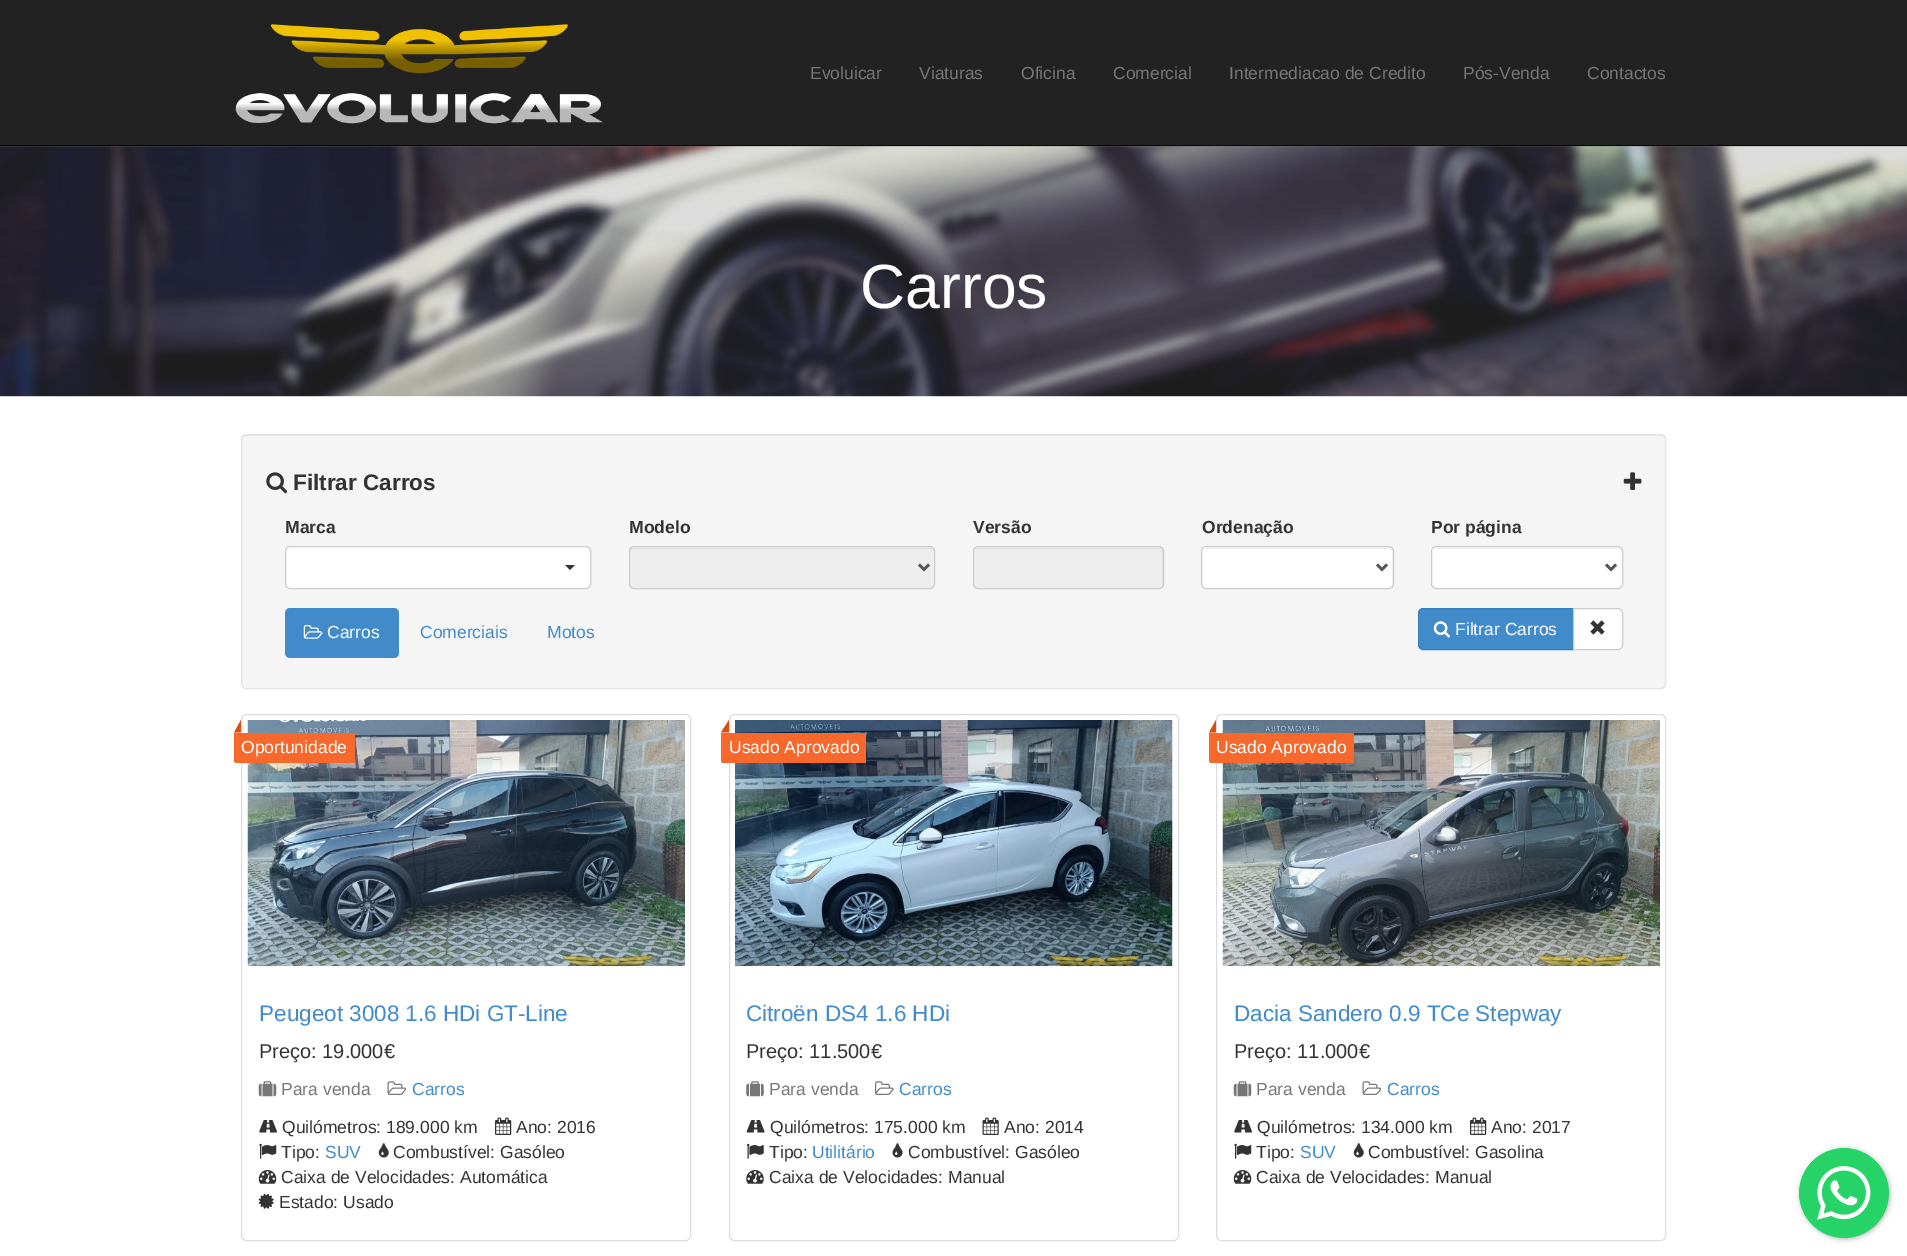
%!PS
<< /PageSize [1907 1256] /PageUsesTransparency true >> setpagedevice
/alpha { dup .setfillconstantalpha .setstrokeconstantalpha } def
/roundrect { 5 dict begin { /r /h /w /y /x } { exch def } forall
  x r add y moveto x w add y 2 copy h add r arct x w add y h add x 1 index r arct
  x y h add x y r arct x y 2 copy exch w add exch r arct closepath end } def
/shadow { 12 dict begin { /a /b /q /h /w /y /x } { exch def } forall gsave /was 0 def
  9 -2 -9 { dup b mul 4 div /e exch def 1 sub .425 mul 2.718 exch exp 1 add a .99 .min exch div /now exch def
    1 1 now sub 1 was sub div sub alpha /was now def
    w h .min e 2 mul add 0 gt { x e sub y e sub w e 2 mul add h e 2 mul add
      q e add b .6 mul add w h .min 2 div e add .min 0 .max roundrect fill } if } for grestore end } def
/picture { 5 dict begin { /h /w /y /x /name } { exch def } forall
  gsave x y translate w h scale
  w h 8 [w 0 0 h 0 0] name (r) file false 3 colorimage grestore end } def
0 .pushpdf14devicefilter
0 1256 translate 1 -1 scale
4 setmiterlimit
1 setgray
0 0 1907 1256 rectfill
0.133 setgray
0 0 1907 145 rectfill
0.031 setgray
0 145 1907 1 rectfill
(img1.rgb) 235 24 368 100 picture
/LiberationSans-Regular [17.5 0 0 -17.5 0 0] selectfont
0.467 setgray
810 79 moveto (Evoluicar) show
919 79 moveto (Viaturas) show
1021 79 moveto (Oficina) show
1113 79 moveto (Comercial) show
1229 79 moveto (Intermediacao de Credito) show
1463 79 moveto (Pós-Venda) show
1587 79 moveto (Contactos) show
0.459 setgray
0 146 1907 250 rectfill
(img2.rgb) 0 146 1907 251 picture
/LiberationSans-Regular [62.5 0 0 -62.5 0 0] selectfont
1 setgray
860 308 moveto (Carros) show
0.961 setgray
241 434 1425 255 5 roundrect fill
0.914 setgray
newpath 246 436 moveto 1661 436 lineto 1663 436 1665 438 1665 440 curveto 1665 439 lineto 1665 437 1663 435 1661 435 curveto 247 435 lineto 246 435 244 436 244 437 curveto closepath fill
0.89 setgray
241.5 434.5 1424 254 4.5 roundrect stroke
(img3.rgb) 266 472 22 22 picture
/LiberationSans-Bold [22.5 0 0 -22.5 0 0] selectfont
0.2 setgray
293 490 moveto (Filtrar Carros) show
(img4.rgb) 1623 472 19 18 picture
/LiberationSans-Bold [17.5 0 0 -17.5 0 0] selectfont
285 533 moveto (Marca) show
1 setgray
285.5 546.5 305 42 4.5 roundrect gsave fill grestore
0.8 setgray
stroke
0.2 setgray
newpath 565 565 moveto 575 565 lineto 570 570 lineto closepath fill
629 533 moveto (Modelo) show
0.933 setgray
629 546 306 43 5 roundrect fill
0.863 setgray
newpath 634 549 moveto 930 549 lineto 932 549 934 550 934 552 curveto 934 550 932 548 930 548 curveto 634 548 lineto 632 548 630 550 630 552 curveto 630 550 632 549 634 549 curveto closepath fill
0.8 setgray
629.5 546.5 305 42 4.5 roundrect stroke
0.333 setgray
2.5 setlinewidth
newpath 919 564.5 moveto 924 569.5 lineto 929 564.5 lineto stroke
0.2 setgray
973 533 moveto (Versão) show
0.933 setgray
973 546 191 43 5 roundrect fill
0.863 setgray
newpath 978 549 moveto 1159 549 lineto 1161 549 1162 550 1162 552 curveto 1162 587 lineto 1162 586 1163 585 1163 584 curveto 1163 552 lineto 1163 550 1161 548 1159 548 curveto 978 548 lineto 976 548 975 549 974 550 curveto 975 549 976 549 978 549 curveto closepath fill
0.8 setgray
1 setlinewidth
973.5 546.5 190 42 4.5 roundrect stroke
0.2 setgray
1202 533 moveto (Ordenação) show
1 setgray
1201 546 193 43 5 roundrect fill
0.925 setgray
newpath 1206 549 moveto 1389 549 lineto 1391 549 1392 550 1392 552 curveto 1392 587 lineto 1392 586 1393 585 1393 584 curveto 1393 552 lineto 1393 550 1391 548 1389 548 curveto 1207 548 lineto 1206 548 1205 549 1204 549 curveto closepath fill
0.8 setgray
1201.5 546.5 192 42 4.5 roundrect stroke
0.333 setgray
2.5 setlinewidth
newpath 1377 564.5 moveto 1382 569.5 lineto 1387 564.5 lineto stroke
0.2 setgray
1431 533 moveto (Por página) show
1 setgray
1431 546 192 43 5 roundrect fill
0.925 setgray
newpath 1436 549 moveto 1618 549 lineto 1620 550 lineto 1620 549 1618 548 1617 548 curveto 1437 548 lineto 1436 548 1435 549 1434 549 curveto closepath fill
0.8 setgray
1 setlinewidth
1431.5 546.5 191 42 4.5 roundrect stroke
0.333 setgray
2.5 setlinewidth
newpath 1606 564.5 moveto 1611 569.5 lineto 1616 564.5 lineto stroke
0.259 0.545 0.792 setrgbcolor
285 608 114 50 5 roundrect fill
(img5.rgb) 303 625 20 14 picture
/LiberationSans-Regular [17.5 0 0 -17.5 0 0] selectfont
1 setgray
327 638 moveto (Carros) show
0.259 0.545 0.792 setrgbcolor
420 638 moveto (Comerciais) show
547 638 moveto (Motos) show
newpath 1423 608.5 moveto 1573.5 608.5 lineto 1573.5 649.5 lineto 1423 649.5 lineto 1420.5 649.5 1418.5 647.5 1418.5 645 curveto 1418.5 613 lineto 1418.5 610.5 1420.5 608.5 1423 608.5 curveto closepath gsave fill grestore
0.208 0.494 0.741 setrgbcolor
1 setlinewidth
stroke
(img6.rgb) 1433 621 17 17 picture
1 setgray
1455 635 moveto (Filtrar Carros) show
newpath 1573.5 608.5 moveto 1618 608.5 lineto 1620.5 608.5 1622.5 610.5 1622.5 613 curveto 1622.5 645 lineto 1622.5 647.5 1620.5 649.5 1618 649.5 curveto 1573.5 649.5 lineto closepath gsave fill grestore
0.8 setgray
stroke
(img7.rgb) 1590 620 15 15 picture
0.863 0.31 0.071 setrgbcolor
newpath 241 732.5 moveto 234 732.5 lineto 241 720 lineto closepath fill
0.867 setgray
241.5 714.5 449 526 4.5 roundrect stroke
(img8.rgb) 247 720 438 247 picture
0.965 0.408 0.169 setrgbcolor
newpath 234 733 moveto 354 733 lineto 354.5 733 355 733.5 355 734 curveto 355 762 lineto 355 762.5 354.5 763 354 763 curveto 236.5 763 lineto 235 763 234 762 234 760.5 curveto closepath fill
1 setgray
241 753 moveto (Oportunidade) show
/LiberationSans-Regular [22.5 0 0 -22.5 0 0] selectfont
0.259 0.545 0.792 setrgbcolor
259 1021 moveto (Peugeot 3008 1.6 HDi GT-Line) show
/LiberationSans-Regular [20 0 0 -20 0 0] selectfont
0.2 setgray
259 1058 moveto (Preço: 19.000€) show
(img9.rgb) 258 1081 19 16 picture
/LiberationSans-Regular [17.5 0 0 -17.5 0 0] selectfont
0.467 setgray
281 1095 moveto (Para venda) show
(img10.rgb) 387 1081 20 14 picture
0.259 0.545 0.792 setrgbcolor
412 1095 moveto (Carros) show
(img11.rgb) 259 1120 18 13 picture
0.2 setgray
282 1133 moveto (Quilómetros: 189.000 km) show
(img12.rgb) 495 1117 17 18 picture
516 1133 moveto (Ano: 2016) show
(img13.rgb) 259 1143 18 16 picture
281 1158 moveto (Tipo:) show
0.259 0.545 0.792 setrgbcolor
325 1158 moveto (SUV) show
(img14.rgb) 378 1143 11 15 picture
0.2 setgray
393 1158 moveto (Combustível: Gasóleo) show
(img15.rgb) 258 1170 19 14 picture
281 1183 moveto (Caixa de Velocidades: Automática) show
(img16.rgb) 258 1193 16 16 picture
279 1208 moveto (Estado: Usado) show
0.863 0.31 0.071 setrgbcolor
newpath 729 732.5 moveto 721 732.5 lineto 729 720 lineto closepath fill
0.867 setgray
729.5 714.5 449 526 4.5 roundrect stroke
(img17.rgb) 735 720 438 247 picture
0.965 0.408 0.169 setrgbcolor
newpath 721 733 moveto 865 733 lineto 865.5 733 866 733.5 866 734 curveto 866 762 lineto 866 762.5 865.5 763 865 763 curveto 723.5 763 lineto 722 763 721 762 721 760.5 curveto closepath fill
1 setgray
729 753 moveto (Usado Aprovado) show
/LiberationSans-Regular [22.5 0 0 -22.5 0 0] selectfont
0.259 0.545 0.792 setrgbcolor
746 1021 moveto (Citroën DS4 1.6 HDi) show
/LiberationSans-Regular [20 0 0 -20 0 0] selectfont
0.2 setgray
746 1058 moveto (Preço: 11.500€) show
(img18.rgb) 746 1081 18 16 picture
/LiberationSans-Regular [17.5 0 0 -17.5 0 0] selectfont
0.467 setgray
769 1095 moveto (Para venda) show
(img19.rgb) 875 1081 19 14 picture
0.259 0.545 0.792 setrgbcolor
899 1095 moveto (Carros) show
(img20.rgb) 746 1120 19 13 picture
0.2 setgray
770 1133 moveto (Quilómetros: 175.000 km) show
(img21.rgb) 982 1117 17 18 picture
1004 1133 moveto (Ano: 2014) show
(img22.rgb) 746 1143 18 16 picture
769 1158 moveto (Tipo:) show
0.259 0.545 0.792 setrgbcolor
812 1158 moveto (Utilitário) show
(img23.rgb) 892 1143 11 15 picture
0.2 setgray
908 1158 moveto (Combustível: Gasóleo) show
(img24.rgb) 746 1170 18 14 picture
769 1183 moveto (Caixa de Velocidades: Manual) show
0.863 0.31 0.071 setrgbcolor
newpath 1216 732.5 moveto 1209 732.5 lineto 1216 720 lineto closepath fill
0.867 setgray
1216.5 714.5 449 526 4.5 roundrect stroke
(img25.rgb) 1222 720 438 247 picture
0.965 0.408 0.169 setrgbcolor
newpath 1209 733 moveto 1353 733 lineto 1353.5 733 1354 733.5 1354 734 curveto 1354 762 lineto 1354 762.5 1353.5 763 1353 763 curveto 1211.5 763 lineto 1210 763 1209 762 1209 760.5 curveto closepath fill
1 setgray
1216 753 moveto (Usado Aprovado) show
/LiberationSans-Regular [22.5 0 0 -22.5 0 0] selectfont
0.259 0.545 0.792 setrgbcolor
1234 1021 moveto (Dacia Sandero 0.9 TCe Stepway) show
/LiberationSans-Regular [20 0 0 -20 0 0] selectfont
0.2 setgray
1234 1058 moveto (Preço: 11.000€) show
(img9.rgb) 1233 1081 19 16 picture
/LiberationSans-Regular [17.5 0 0 -17.5 0 0] selectfont
0.467 setgray
1256 1095 moveto (Para venda) show
(img10.rgb) 1362 1081 20 14 picture
0.259 0.545 0.792 setrgbcolor
1387 1095 moveto (Carros) show
(img11.rgb) 1234 1120 18 13 picture
0.2 setgray
1257 1133 moveto (Quilómetros: 134.000 km) show
(img12.rgb) 1470 1117 17 18 picture
1491 1133 moveto (Ano: 2017) show
(img13.rgb) 1234 1143 18 16 picture
1256 1158 moveto (Tipo:) show
0.259 0.545 0.792 setrgbcolor
1300 1158 moveto (SUV) show
(img14.rgb) 1353 1143 11 15 picture
0.2 setgray
1368 1158 moveto (Combustível: Gasolina) show
(img15.rgb) 1233 1170 19 14 picture
1256 1183 moveto (Caixa de Velocidades: Manual) show
0.235 setgray
1800 1149 90 90 45 2.5 0.4 shadow
0.145 0.827 0.4 setrgbcolor
newpath 1844 1193 45 0 360 arc closepath fill
(img26.rgb) 1799 1148 90 90 picture
.poppdf14devicefilter showpage
